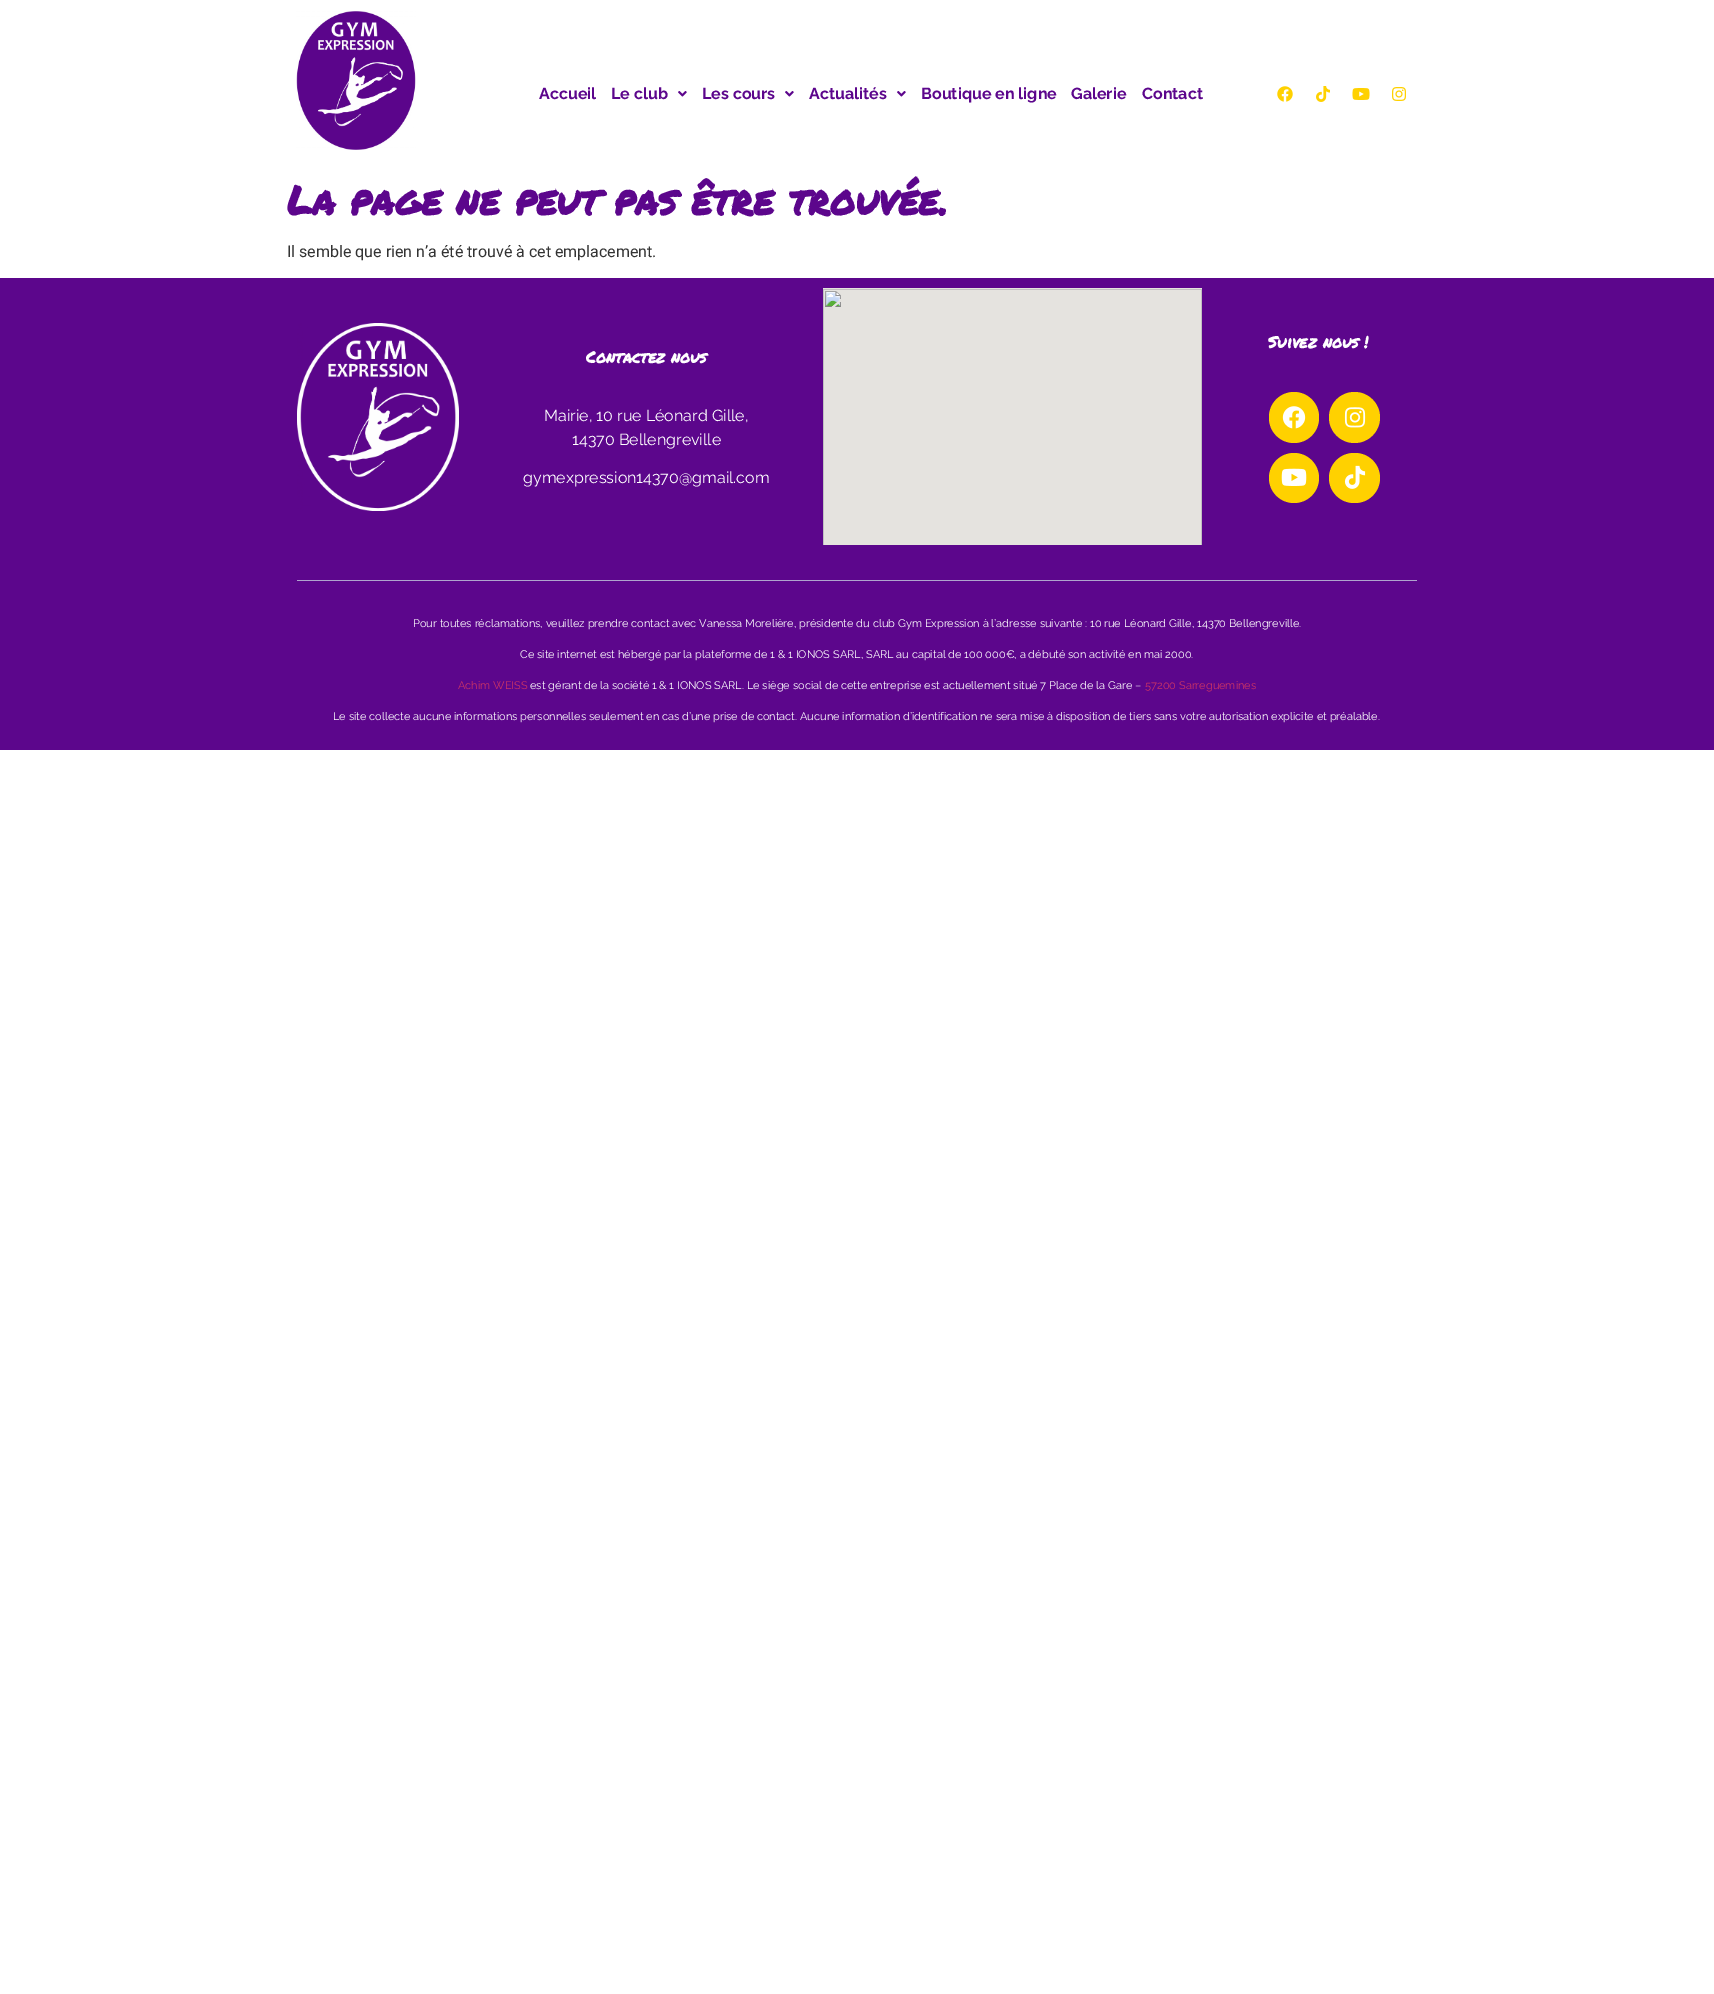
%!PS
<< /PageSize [1714 1994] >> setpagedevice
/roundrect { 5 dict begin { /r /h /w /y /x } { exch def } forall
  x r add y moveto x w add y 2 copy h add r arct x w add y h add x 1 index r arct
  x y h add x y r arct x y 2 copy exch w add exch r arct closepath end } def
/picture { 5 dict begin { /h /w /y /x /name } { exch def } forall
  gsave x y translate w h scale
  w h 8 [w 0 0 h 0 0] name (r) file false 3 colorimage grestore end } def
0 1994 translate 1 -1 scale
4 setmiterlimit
1 setgray
0 0 1714 1994 rectfill
(img1.rgb) 296 11 120 139 picture
/Raleway-Bold [16 0 0 -16 0 0] selectfont
0.361 0.024 0.549 setrgbcolor
539 99 moveto (Accueil) show
611 99 moveto (Le club) show
(img2.rgb) 678 91 9 6 picture
702 99 moveto (Les cours) show
(img2.rgb) 785 91 9 6 picture
809 99 moveto (Actualités) show
(img2.rgb) 897 91 9 6 picture
921 99 moveto (Boutique en ligne) show
1071 99 moveto (Galerie) show
1142 99 moveto (Contact) show
(img3.rgb) 1277 86 16 16 picture
(img4.rgb) 1316 86 14 16 picture
(img5.rgb) 1352 88 18 12 picture
(img6.rgb) 1392 87 14 14 picture
/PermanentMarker-Bold [40 0 0 -40 0 0] selectfont
287 215 moveto (La page ne peut pas être trouvée.) show
/Roboto-Regular [16 0 0 -16 0 0] selectfont
0.2 setgray
287 257 moveto (Il semble que rien n’a été trouvé à cet emplacement.) show
0.361 0.024 0.549 setrgbcolor
0 278 1714 472 rectfill
(img7.rgb) 297 323 162 188 picture
(img8.rgb) 823 288 379 257 picture
/PermanentMarker-Bold [16 0 0 -16 0 0] selectfont
1 setgray
1268 348 moveto (Suivez nous !) show
1 0.82 0 setrgbcolor
1269 392 50 51 25 roundrect fill
(img9.rgb) 1282 406 24 23 picture
newpath 1354.5 417.5 25.5 0 360 arc closepath fill
(img10.rgb) 1344 407 22 21 picture
newpath 1294 478 25 0 360 arc closepath fill
(img11.rgb) 1281 468 26 18 picture
1329 453 51 50 25 roundrect fill
(img12.rgb) 1344 465 22 24 picture
1 setgray
586 363 moveto (Contactez nous) show
/Raleway-Regular [16 0 0 -16 0 0] selectfont
544 421 moveto (Mairie, 10 rue Léonard Gille,) show
572 445 moveto (14370 Bellengreville) show
523 483 moveto (gymexpression14370@gmail.com) show
0.686 0.643 0.808 setrgbcolor
297 580 1120 1 rectfill
/Raleway-Regular [11 0 0 -11 0 0] selectfont
1 setgray
413 627 moveto (Pour toutes réclamations, veuillez prendre contact avec Vanessa Morelière, présidente du club Gym Expression à l’adresse suivante : 10 rue Léonard Gille, 14370 Bellengreville.) show
520 658 moveto (Ce site internet est hébergé par la plateforme de 1 & 1 IONOS SARL, SARL au capital de 100 000€, a débuté son activité en mai 2000.) show
0.8 0.2 0.4 setrgbcolor
458 689 moveto (Achim WEISS) show
1 setgray
530 689 moveto (est gérant de la société 1 & 1 IONOS SARL. Le siège social de cette entreprise est actuellement situé 7 Place de la Gare –) show
0.8 0.2 0.4 setrgbcolor
1145 689 moveto (57200 Sarreguemines) show
1 setgray
333 720 moveto (Le site collecte aucune informations personnelles seulement en cas d’une prise de contact. Aucune information d’identification ne sera mise à disposition de tiers sans votre autorisation explicite et préalable.) show
showpage
